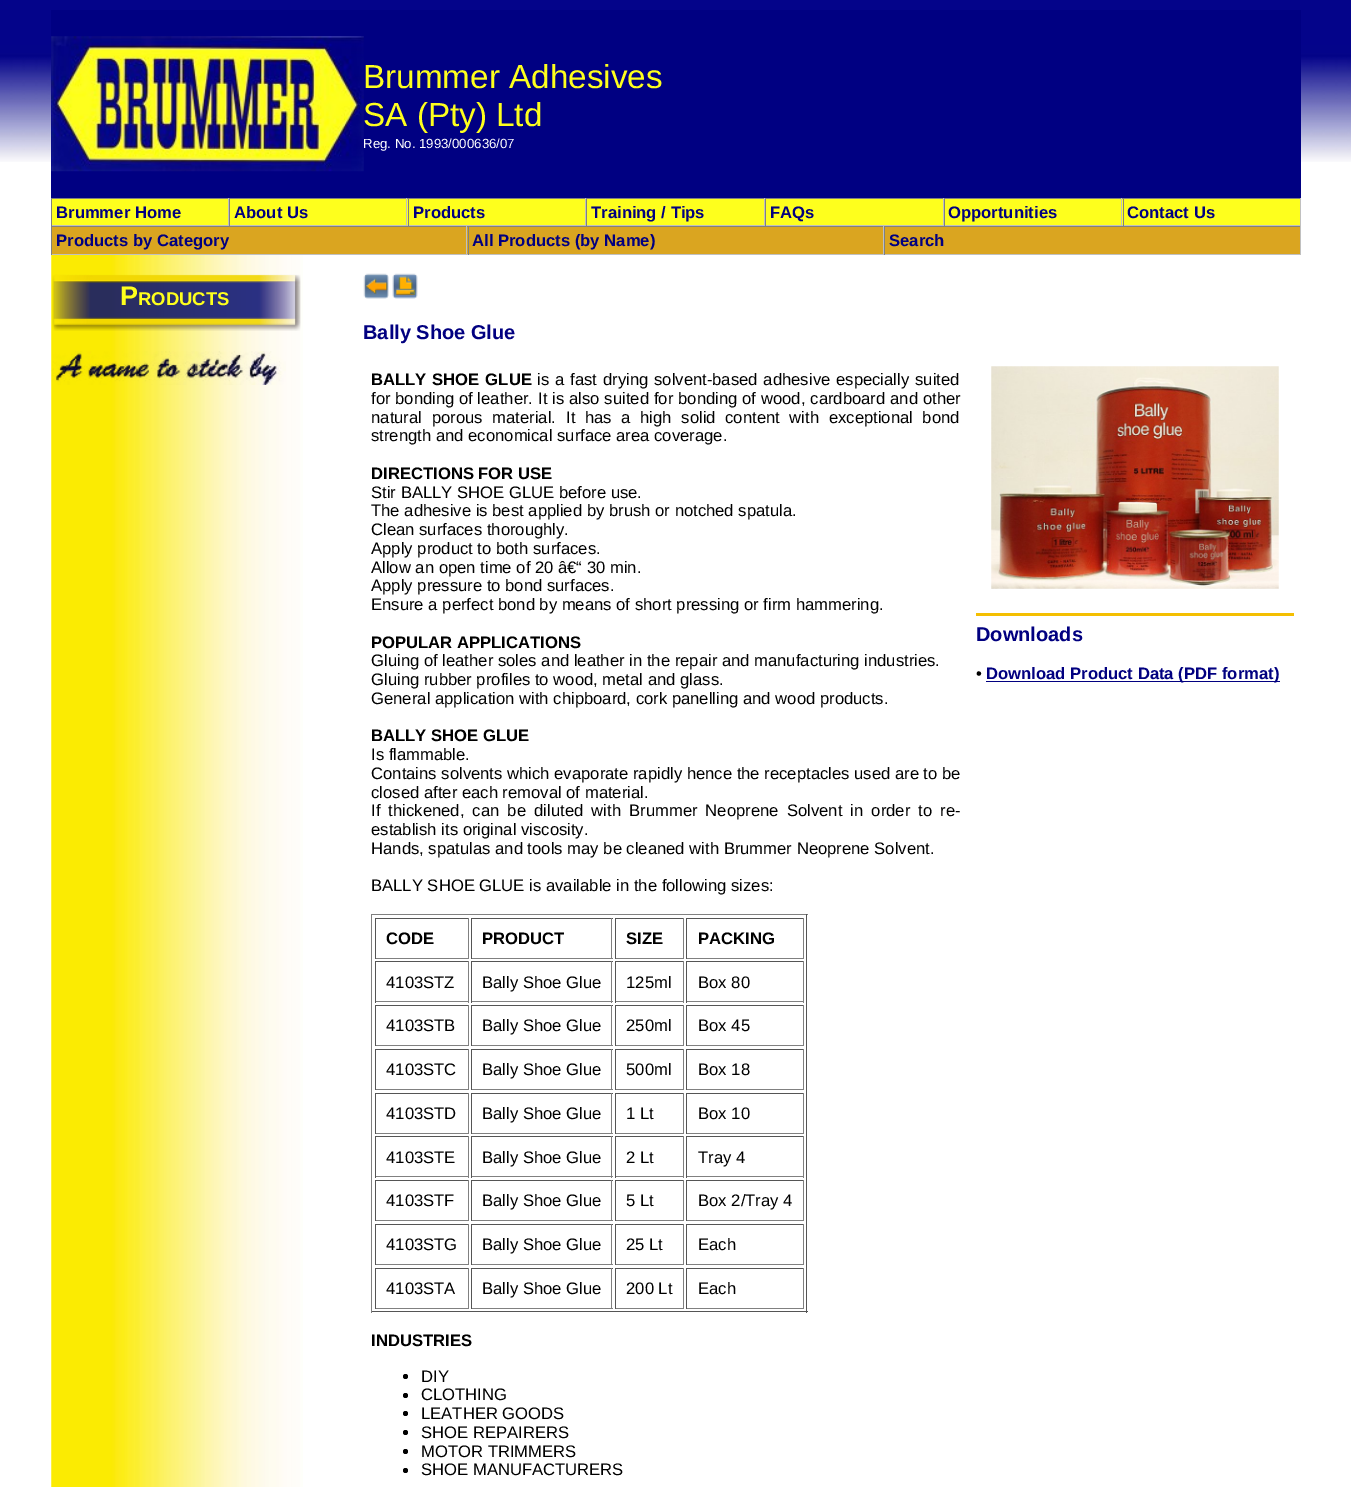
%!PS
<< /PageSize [1351 1487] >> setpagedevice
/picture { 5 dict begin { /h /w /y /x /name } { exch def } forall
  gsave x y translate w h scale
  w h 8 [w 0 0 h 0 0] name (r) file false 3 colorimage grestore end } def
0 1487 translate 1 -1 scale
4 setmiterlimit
1 setgray
0 0 1351 1487 rectfill
(img1.rgb) 0 0 1351 162 picture
0 0 0.51 setrgbcolor
51 10 1250 188 rectfill
(img2.rgb) 51 36 313 136 picture
/LiberationSans-Regular [33.25 0 0 -33.25 0 0] selectfont
0.996 1 0.114 setrgbcolor
363 88 moveto (Brummer Adhesives) show
363 126 moveto (SA \(Pty\) Ltd) show
/LiberationSans-Regular [13.25 0 0 -13.25 0 0] selectfont
1 setgray
363 148 moveto (Reg. No. 1993/000636/07) show
0.996 1 0.114 setrgbcolor
52 199 176 26 rectfill
0.502 setgray
51 198 1250 1 rectfill
0.753 setgray
228 198 1 28 rectfill
51 225 178 1 rectfill
0.502 setgray
51 198 1 28 rectfill
/LiberationSans-Bold [16.65 0 0 -16.65 0 0] selectfont
0.004 0 0.502 setrgbcolor
56 218 moveto (Brummer Home) show
0.996 1 0.114 setrgbcolor
230 199 178 26 rectfill
0.753 setgray
406 198 1 28 rectfill
229 225 179 1 rectfill
0.502 setgray
229 198 1 28 rectfill
0.004 0 0.502 setrgbcolor
234 218 moveto (About Us) show
0.996 1 0.114 setrgbcolor
409 199 176 26 rectfill
0.753 setgray
585 198 1 28 rectfill
408 225 178 1 rectfill
0.502 setgray
408 198 1 28 rectfill
0.004 0 0.502 setrgbcolor
413 218 moveto (Products) show
0.996 1 0.114 setrgbcolor
587 199 177 26 rectfill
0.753 setgray
764 198 1 28 rectfill
586 225 179 1 rectfill
0.502 setgray
586 198 1 28 rectfill
0.004 0 0.502 setrgbcolor
591 218 moveto (Training / Tips) show
0.996 1 0.114 setrgbcolor
766 199 177 26 rectfill
0.753 setgray
943 198 1 28 rectfill
765 225 179 1 rectfill
0.502 setgray
765 198 1 28 rectfill
0.004 0 0.502 setrgbcolor
770 218 moveto (FAQs) show
0.996 1 0.114 setrgbcolor
945 199 178 26 rectfill
0.753 setgray
1121 198 1 28 rectfill
944 225 179 1 rectfill
0.502 setgray
944 198 1 28 rectfill
0.004 0 0.502 setrgbcolor
948 218 moveto (Opportunities) show
0.996 1 0.114 setrgbcolor
1124 199 176 26 rectfill
0.753 setgray
1300 198 1 28 rectfill
1123 225 178 1 rectfill
0.502 setgray
1123 198 1 28 rectfill
0.004 0 0.502 setrgbcolor
1127 218 moveto (Contact Us) show
0.855 0.647 0.125 setrgbcolor
52 227 416 27 rectfill
0.502 setgray
51 226 1250 1 rectfill
0.753 setgray
466 226 1 29 rectfill
51 254 417 1 rectfill
0.502 setgray
51 226 1 29 rectfill
0.004 0 0.502 setrgbcolor
56 246 moveto (Products by Category) show
0.855 0.647 0.125 setrgbcolor
469 227 414 27 rectfill
0.753 setgray
883 226 1 29 rectfill
468 254 416 1 rectfill
0.502 setgray
468 226 1 29 rectfill
0.004 0 0.502 setrgbcolor
472 246 moveto (All Products \(by Name\)) show
0.855 0.647 0.125 setrgbcolor
885 227 415 27 rectfill
0.753 setgray
1300 226 1 29 rectfill
884 254 417 1 rectfill
0.502 setgray
884 226 1 29 rectfill
0.004 0 0.502 setrgbcolor
889 246 moveto (Search) show
(img3.rgb) 51 255 252 1232 picture
(img4.rgb) 52 274 249 57 picture
/LiberationSans-Bold [27 0 0 -27 0 0] selectfont
0.996 1 0.114 setrgbcolor
120 305 moveto (P) show
/LiberationSans-Bold [18.5 0 0 -18.5 0 0] selectfont
138 305 moveto (RODUCTS) show
(img5.rgb) 51 351 235 34 picture
(img6.rgb) 363 273 26 26 picture
(img7.rgb) 392 273 26 26 picture
/LiberationSans-Bold [20 0 0 -20 0 0] selectfont
0.004 0 0.502 setrgbcolor
363 339 moveto (Bally Shoe Glue) show
/LiberationSans-Bold [16.65 0 0 -16.65 0 0] selectfont
0 setgray
371 385 moveto 1.25 0 32 (BALLY SHOE GLUE) widthshow
/LiberationSans-Regular [16.65 0 0 -16.65 0 0] selectfont
537 385 moveto 1.25 0 32 (is a fast drying solvent-based adhesive especially suited) widthshow
371 404 moveto (for bonding of leather.) show
538 404 moveto 0.25 0 32 (It is also suited for bonding of wood, cardboard and other) widthshow
371 423 moveto 5 0 32 (natural porous material.) widthshow
566 423 moveto 5 0 32 (It has a high solid content with exceptional bond) widthshow
371 441 moveto (strength and economical surface area coverage.) show
/LiberationSans-Bold [16.65 0 0 -16.65 0 0] selectfont
371 479 moveto (DIRECTIONS FOR USE) show
/LiberationSans-Regular [16.65 0 0 -16.65 0 0] selectfont
371 498 moveto (Stir BALLY SHOE GLUE before use.) show
371 516 moveto (The adhesive is best applied by brush or notched spatula.) show
371 535 moveto (Clean surfaces thoroughly.) show
371 554 moveto (Apply product to both surfaces.) show
371 573 moveto (Allow an open time of 20 â€“ 30 min.) show
371 591 moveto (Apply pressure to bond surfaces.) show
371 610 moveto (Ensure a perfect bond by means of short pressing or firm hammering.) show
/LiberationSans-Bold [16.65 0 0 -16.65 0 0] selectfont
371 648 moveto (POPULAR APPLICATIONS) show
/LiberationSans-Regular [16.65 0 0 -16.65 0 0] selectfont
371 666 moveto (Gluing of leather soles and leather in the repair and manufacturing industries.) show
371 685 moveto (Gluing rubber profiles to wood, metal and glass.) show
371 704 moveto (General application with chipboard, cork panelling and wood products.) show
/LiberationSans-Bold [16.65 0 0 -16.65 0 0] selectfont
371 741 moveto (BALLY SHOE GLUE) show
/LiberationSans-Regular [16.65 0 0 -16.65 0 0] selectfont
371 760 moveto (Is flammable.) show
371 779 moveto (Contains solvents which evaporate rapidly hence the receptacles used are to be) show
371 798 moveto (closed after each removal of material.) show
371 816 moveto 3.5 0 32 (If thickened, can be diluted with Brummer Neoprene Solvent in order to re-) widthshow
371 835 moveto (establish its original viscosity.) show
371 854 moveto (Hands, spatulas and tools may be cleaned with Brummer Neoprene Solvent.) show
371 891 moveto (BALLY SHOE GLUE is available in the following sizes:) show
0.502 setgray
371 914 437 1 rectfill
0.333 setgray
806 914 1 399 rectfill
371 1311 437 1 rectfill
0.502 setgray
371 914 1 399 rectfill
0.333 setgray
375 918 94 1 rectfill
0.502 setgray
468 918 1 41 rectfill
375 958 94 1 rectfill
0.333 setgray
375 918 1 41 rectfill
/LiberationSans-Bold [16.65 0 0 -16.65 0 0] selectfont
0 setgray
386 944 moveto (CODE) show
0.333 setgray
471 918 142 1 rectfill
0.502 setgray
611 918 1 41 rectfill
471 958 142 1 rectfill
0.333 setgray
471 918 1 41 rectfill
0 setgray
482 944 moveto (PRODUCT) show
0.333 setgray
615 918 69 1 rectfill
0.502 setgray
683 918 1 41 rectfill
615 958 69 1 rectfill
0.333 setgray
615 918 1 41 rectfill
0 setgray
626 944 moveto (SIZE) show
0.333 setgray
686 918 118 1 rectfill
0.502 setgray
803 918 1 41 rectfill
686 958 118 1 rectfill
0.333 setgray
686 918 1 41 rectfill
0 setgray
698 944 moveto (PACKING) show
0.333 setgray
375 961 94 1 rectfill
0.502 setgray
468 961 1 42 rectfill
375 1001 94 1 rectfill
0.333 setgray
375 961 1 42 rectfill
/LiberationSans-Regular [16.65 0 0 -16.65 0 0] selectfont
0 setgray
386 988 moveto (4103STZ) show
0.333 setgray
471 961 142 1 rectfill
0.502 setgray
611 961 1 42 rectfill
471 1001 142 1 rectfill
0.333 setgray
471 961 1 42 rectfill
0 setgray
482 988 moveto (Bally Shoe Glue) show
0.333 setgray
615 961 69 1 rectfill
0.502 setgray
683 961 1 42 rectfill
615 1001 69 1 rectfill
0.333 setgray
615 961 1 42 rectfill
0 setgray
626 988 moveto (125ml) show
0.333 setgray
686 961 118 1 rectfill
0.502 setgray
803 961 1 42 rectfill
686 1001 118 1 rectfill
0.333 setgray
686 961 1 42 rectfill
0 setgray
698 988 moveto (Box 80) show
0.333 setgray
375 1005 94 1 rectfill
0.502 setgray
468 1005 1 41 rectfill
375 1045 94 1 rectfill
0.333 setgray
375 1005 1 41 rectfill
0 setgray
386 1031 moveto (4103STB) show
0.333 setgray
471 1005 142 1 rectfill
0.502 setgray
611 1005 1 41 rectfill
471 1045 142 1 rectfill
0.333 setgray
471 1005 1 41 rectfill
0 setgray
482 1031 moveto (Bally Shoe Glue) show
0.333 setgray
615 1005 69 1 rectfill
0.502 setgray
683 1005 1 41 rectfill
615 1045 69 1 rectfill
0.333 setgray
615 1005 1 41 rectfill
0 setgray
626 1031 moveto (250ml) show
0.333 setgray
686 1005 118 1 rectfill
0.502 setgray
803 1005 1 41 rectfill
686 1045 118 1 rectfill
0.333 setgray
686 1005 1 41 rectfill
0 setgray
698 1031 moveto (Box 45) show
0.333 setgray
375 1049 94 1 rectfill
0.502 setgray
468 1049 1 41 rectfill
375 1089 94 1 rectfill
0.333 setgray
375 1049 1 41 rectfill
0 setgray
386 1075 moveto (4103STC) show
0.333 setgray
471 1049 142 1 rectfill
0.502 setgray
611 1049 1 41 rectfill
471 1089 142 1 rectfill
0.333 setgray
471 1049 1 41 rectfill
0 setgray
482 1075 moveto (Bally Shoe Glue) show
0.333 setgray
615 1049 69 1 rectfill
0.502 setgray
683 1049 1 41 rectfill
615 1089 69 1 rectfill
0.333 setgray
615 1049 1 41 rectfill
0 setgray
626 1075 moveto (500ml) show
0.333 setgray
686 1049 118 1 rectfill
0.502 setgray
803 1049 1 41 rectfill
686 1089 118 1 rectfill
0.333 setgray
686 1049 1 41 rectfill
0 setgray
698 1075 moveto (Box 18) show
0.333 setgray
375 1093 94 1 rectfill
0.502 setgray
468 1093 1 41 rectfill
375 1133 94 1 rectfill
0.333 setgray
375 1093 1 41 rectfill
0 setgray
386 1119 moveto (4103STD) show
0.333 setgray
471 1093 142 1 rectfill
0.502 setgray
611 1093 1 41 rectfill
471 1133 142 1 rectfill
0.333 setgray
471 1093 1 41 rectfill
0 setgray
482 1119 moveto (Bally Shoe Glue) show
0.333 setgray
615 1093 69 1 rectfill
0.502 setgray
683 1093 1 41 rectfill
615 1133 69 1 rectfill
0.333 setgray
615 1093 1 41 rectfill
0 setgray
626 1119 moveto (1 Lt) show
0.333 setgray
686 1093 118 1 rectfill
0.502 setgray
803 1093 1 41 rectfill
686 1133 118 1 rectfill
0.333 setgray
686 1093 1 41 rectfill
0 setgray
698 1119 moveto (Box 10) show
0.333 setgray
375 1136 94 1 rectfill
0.502 setgray
468 1136 1 42 rectfill
375 1176 94 1 rectfill
0.333 setgray
375 1136 1 42 rectfill
0 setgray
386 1163 moveto (4103STE) show
0.333 setgray
471 1136 142 1 rectfill
0.502 setgray
611 1136 1 42 rectfill
471 1176 142 1 rectfill
0.333 setgray
471 1136 1 42 rectfill
0 setgray
482 1163 moveto (Bally Shoe Glue) show
0.333 setgray
615 1136 69 1 rectfill
0.502 setgray
683 1136 1 42 rectfill
615 1176 69 1 rectfill
0.333 setgray
615 1136 1 42 rectfill
0 setgray
626 1163 moveto (2 Lt) show
0.333 setgray
686 1136 118 1 rectfill
0.502 setgray
803 1136 1 42 rectfill
686 1176 118 1 rectfill
0.333 setgray
686 1136 1 42 rectfill
0 setgray
698 1163 moveto (Tray 4) show
0.333 setgray
375 1180 94 1 rectfill
0.502 setgray
468 1180 1 41 rectfill
375 1220 94 1 rectfill
0.333 setgray
375 1180 1 41 rectfill
0 setgray
386 1206 moveto (4103STF) show
0.333 setgray
471 1180 142 1 rectfill
0.502 setgray
611 1180 1 41 rectfill
471 1220 142 1 rectfill
0.333 setgray
471 1180 1 41 rectfill
0 setgray
482 1206 moveto (Bally Shoe Glue) show
0.333 setgray
615 1180 69 1 rectfill
0.502 setgray
683 1180 1 41 rectfill
615 1220 69 1 rectfill
0.333 setgray
615 1180 1 41 rectfill
0 setgray
626 1206 moveto (5 Lt) show
0.333 setgray
686 1180 118 1 rectfill
0.502 setgray
803 1180 1 41 rectfill
686 1220 118 1 rectfill
0.333 setgray
686 1180 1 41 rectfill
0 setgray
698 1206 moveto (Box 2/Tray 4) show
0.333 setgray
375 1224 94 1 rectfill
0.502 setgray
468 1224 1 41 rectfill
375 1264 94 1 rectfill
0.333 setgray
375 1224 1 41 rectfill
0 setgray
386 1250 moveto (4103STG) show
0.333 setgray
471 1224 142 1 rectfill
0.502 setgray
611 1224 1 41 rectfill
471 1264 142 1 rectfill
0.333 setgray
471 1224 1 41 rectfill
0 setgray
482 1250 moveto (Bally Shoe Glue) show
0.333 setgray
615 1224 69 1 rectfill
0.502 setgray
683 1224 1 41 rectfill
615 1264 69 1 rectfill
0.333 setgray
615 1224 1 41 rectfill
0 setgray
626 1250 moveto (25 Lt) show
0.333 setgray
686 1224 118 1 rectfill
0.502 setgray
803 1224 1 41 rectfill
686 1264 118 1 rectfill
0.333 setgray
686 1224 1 41 rectfill
0 setgray
698 1250 moveto (Each) show
0.333 setgray
375 1268 94 1 rectfill
0.502 setgray
468 1268 1 41 rectfill
375 1308 94 1 rectfill
0.333 setgray
375 1268 1 41 rectfill
0 setgray
386 1294 moveto (4103STA) show
0.333 setgray
471 1268 142 1 rectfill
0.502 setgray
611 1268 1 41 rectfill
471 1308 142 1 rectfill
0.333 setgray
471 1268 1 41 rectfill
0 setgray
482 1294 moveto (Bally Shoe Glue) show
0.333 setgray
615 1268 69 1 rectfill
0.502 setgray
683 1268 1 41 rectfill
615 1308 69 1 rectfill
0.333 setgray
615 1268 1 41 rectfill
0 setgray
626 1294 moveto (200 Lt) show
0.333 setgray
686 1268 118 1 rectfill
0.502 setgray
803 1268 1 41 rectfill
686 1308 118 1 rectfill
0.333 setgray
686 1268 1 41 rectfill
0 setgray
698 1294 moveto (Each) show
/LiberationSans-Bold [16.65 0 0 -16.65 0 0] selectfont
371 1346 moveto (INDUSTRIES) show
newpath 405.5 1376.5 2.5 0 360 arc closepath fill
/LiberationSans-Regular [16.65 0 0 -16.65 0 0] selectfont
421 1382 moveto (DIY) show
newpath 405.5 1395.5 2.5 0 360 arc closepath fill
421 1400 moveto (CLOTHING) show
newpath 405.5 1413.5 2.5 0 360 arc closepath fill
421 1419 moveto (LEATHER GOODS) show
newpath 405.5 1432.5 2.5 0 360 arc closepath fill
421 1438 moveto (SHOE REPAIRERS) show
newpath 405.5 1451.5 2.5 0 360 arc closepath fill
421 1457 moveto (MOTOR TRIMMERS) show
newpath 405.5 1470.5 2.5 0 360 arc closepath fill
421 1475 moveto (SHOE MANUFACTURERS) show
(img8.rgb) 991 366 288 223 picture
0.957 0.749 0.004 setrgbcolor
976 613 318 3 rectfill
/LiberationSans-Bold [20 0 0 -20 0 0] selectfont
0.004 0 0.502 setrgbcolor
976 641 moveto (Downloads) show
/LiberationSans-Regular [16.65 0 0 -16.65 0 0] selectfont
0 setgray
976 679 moveto (•) show
0.004 0 0.502 setrgbcolor
986 681 294 1 rectfill
/LiberationSans-Bold [16.65 0 0 -16.65 0 0] selectfont
986 679 moveto (Download Product Data \(PDF format\)) show
showpage
